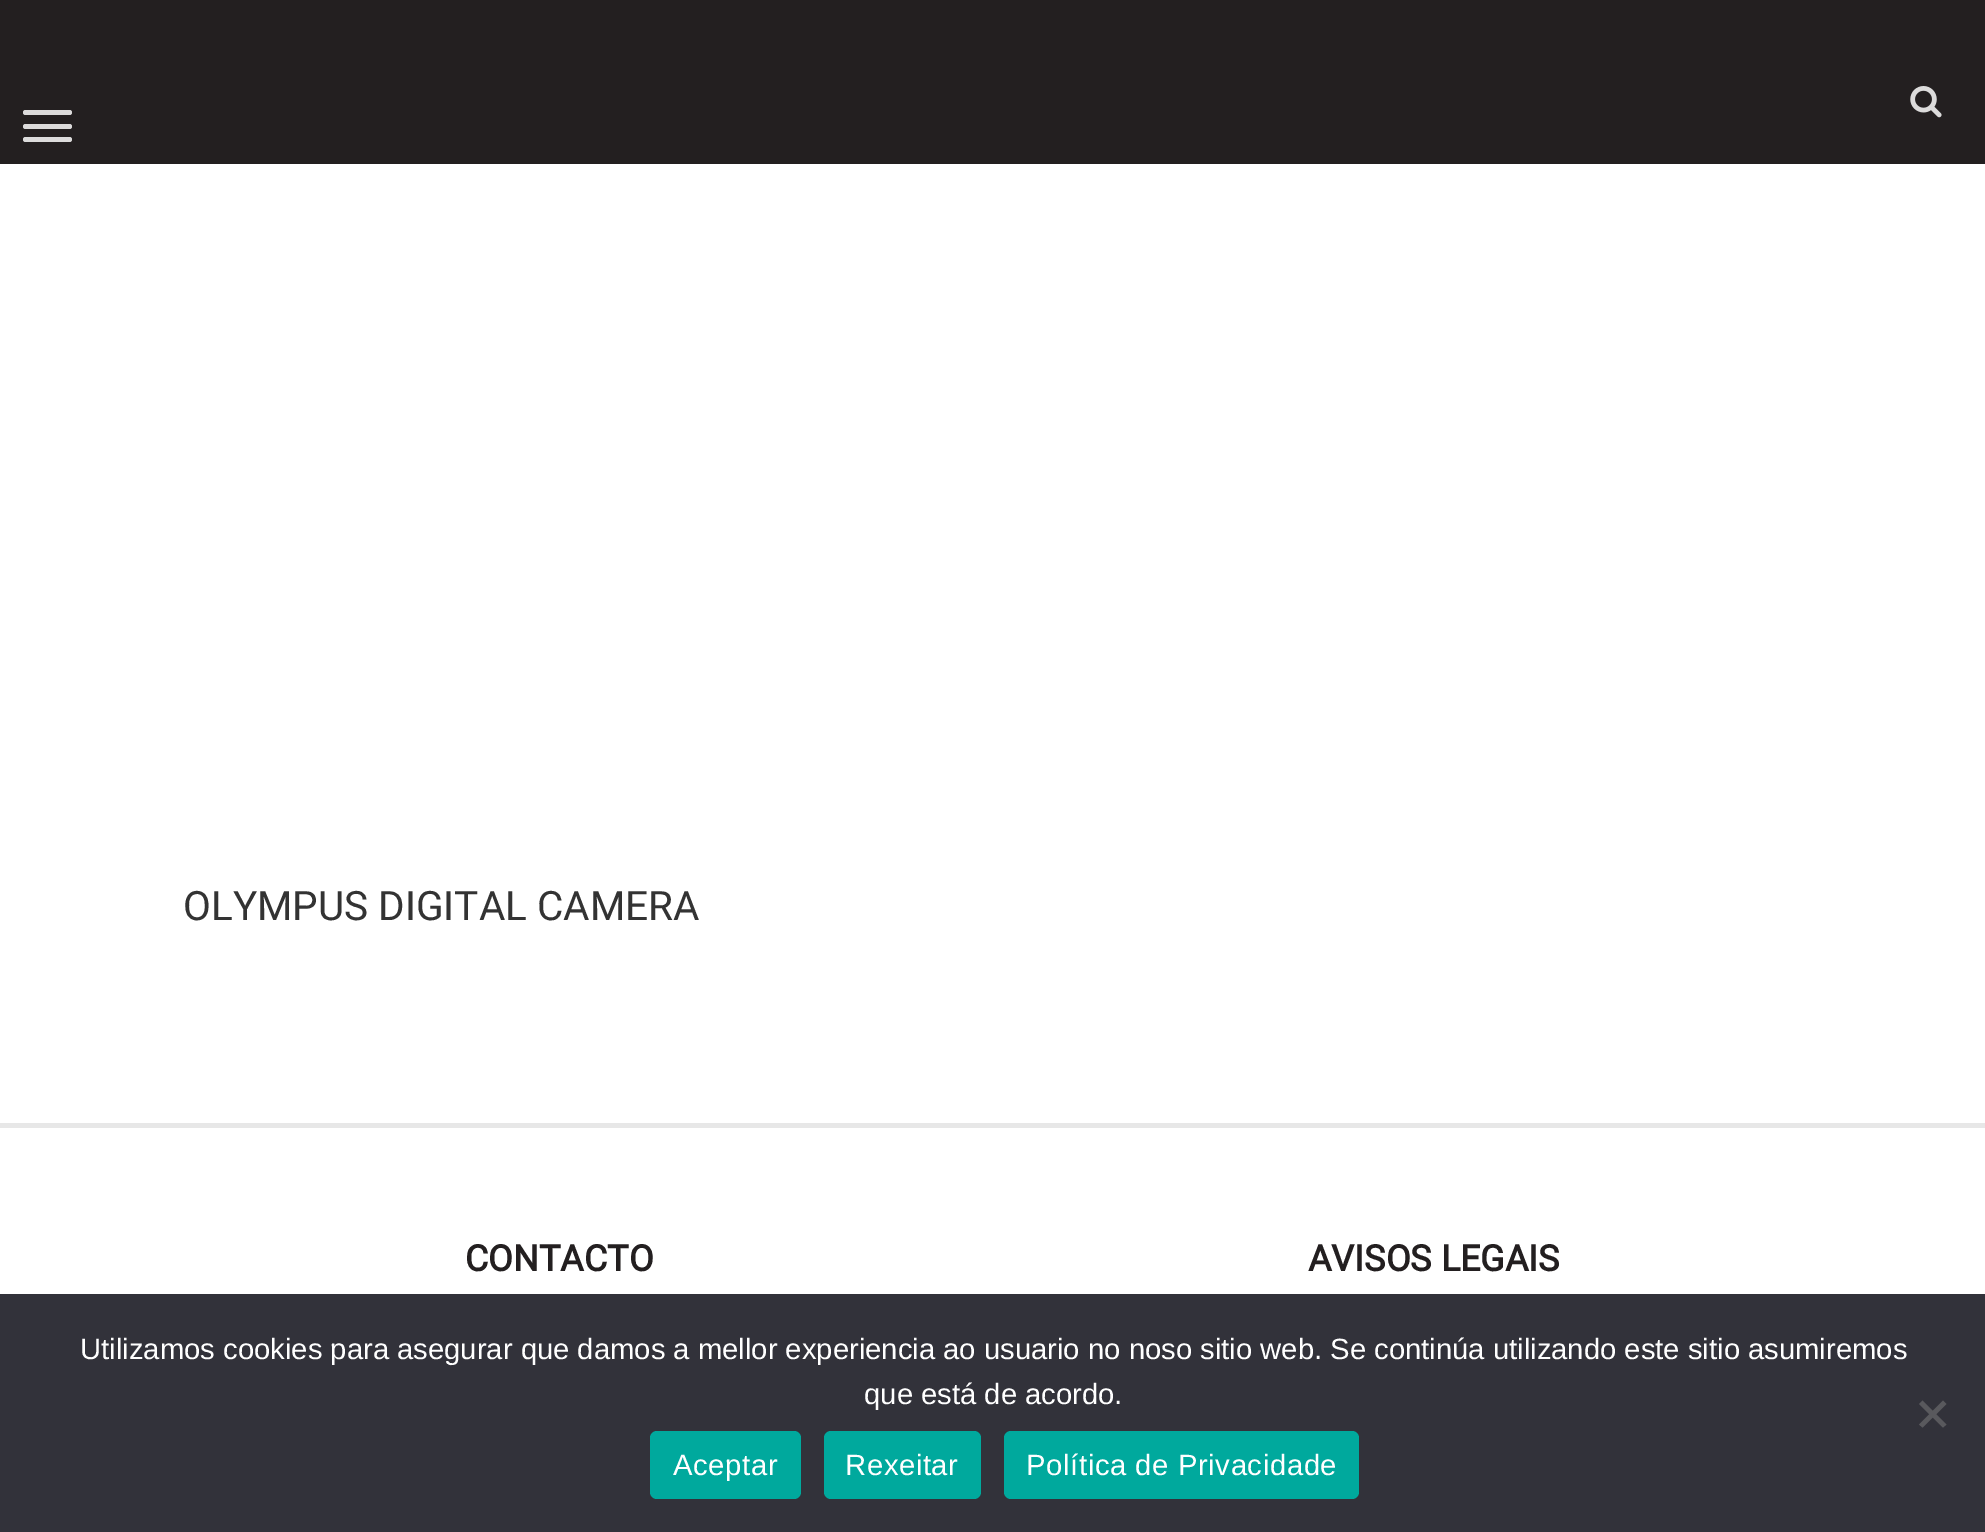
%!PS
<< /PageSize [1985 1532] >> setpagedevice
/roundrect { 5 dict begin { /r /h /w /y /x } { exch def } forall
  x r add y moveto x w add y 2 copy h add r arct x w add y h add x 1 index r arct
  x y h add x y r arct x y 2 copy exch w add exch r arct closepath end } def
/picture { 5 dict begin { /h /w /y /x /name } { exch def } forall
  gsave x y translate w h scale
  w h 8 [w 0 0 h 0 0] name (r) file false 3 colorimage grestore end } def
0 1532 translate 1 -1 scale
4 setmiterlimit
1 setgray
0 0 1985 1532 rectfill
0.137 0.122 0.125 setrgbcolor
0 0 1985 164 rectfill
(img1.rgb) 1910 86 32 32 picture
0.863 0.859 0.859 setrgbcolor
23 110 49 5 2.5 roundrect fill
23 124 49 5 2.5 roundrect fill
23 137 49 5 2.5 roundrect fill
/Roboto-Regular [40.5 0 0 -40.5 0 0] selectfont
0.2 setgray
183 920 moveto (OLYMPUS DIGITAL CAMERA) show
0.906 setgray
0 1123 1985 5 rectfill
/Roboto-Bold [36 0 0 -36 0 0] selectfont
0.137 0.122 0.125 setrgbcolor
465 1271 moveto (CONTACTO) show
1308 1271 moveto (AVISOS LEGAIS) show
0.196 0.196 0.227 setrgbcolor
0 1294 1985 238 rectfill
/LiberationSans-Regular [29.25 0 0 -29.25 0 0] selectfont
1 setgray
80 1359 moveto (Utilizamos cookies para asegurar que damos a mellor experiencia ao usuario no noso sitio web. Se continúa utilizando este sitio asumiremos) show
864 1404 moveto (que está de acordo.) show
0.349 0.349 0.365 setrgbcolor
newpath 1943 1400.5 moveto 1946.5 1404 lineto 1922.5 1427.5 lineto 1919 1424.5 lineto closepath fill
newpath 1919 1404 moveto 1922.5 1400.5 lineto 1946.5 1424.5 lineto 1943 1427.5 lineto closepath fill
0 0.663 0.616 setrgbcolor
650 1431 151 68 7 roundrect fill
1 setgray
673 1475 moveto 0.6 0 (Aceptar) ashow
0 0.663 0.616 setrgbcolor
824 1431 157 68 7 roundrect fill
1 setgray
845 1475 moveto 0.6 0 (Rexeitar) ashow
0 0.663 0.616 setrgbcolor
1004 1431 355 68 7 roundrect fill
1 setgray
1026 1475 moveto 0.6 0 (Política de Privacidade) ashow
showpage
